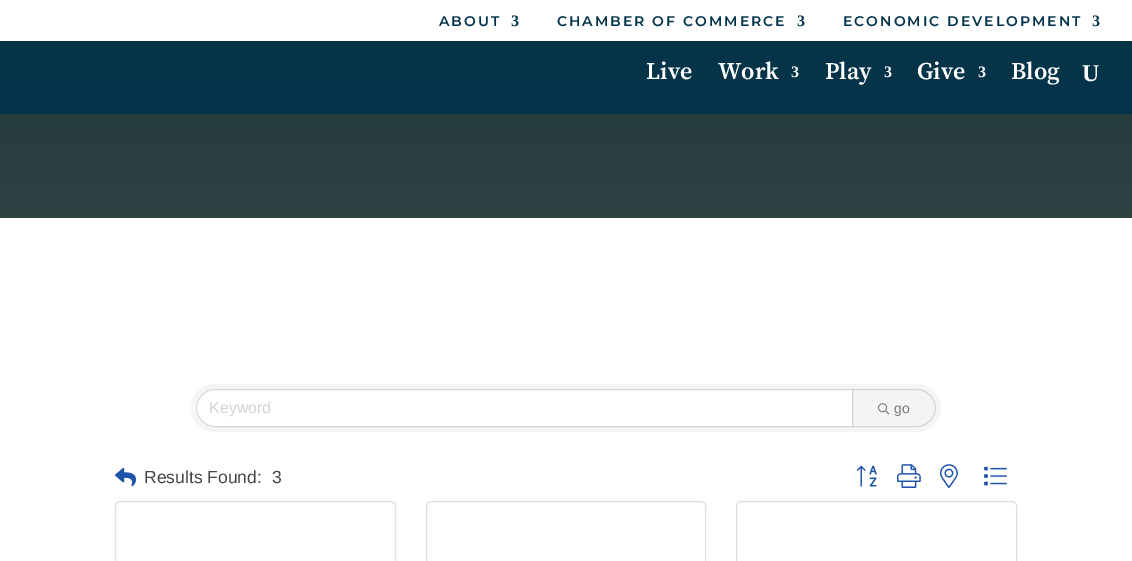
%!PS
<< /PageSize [1132 561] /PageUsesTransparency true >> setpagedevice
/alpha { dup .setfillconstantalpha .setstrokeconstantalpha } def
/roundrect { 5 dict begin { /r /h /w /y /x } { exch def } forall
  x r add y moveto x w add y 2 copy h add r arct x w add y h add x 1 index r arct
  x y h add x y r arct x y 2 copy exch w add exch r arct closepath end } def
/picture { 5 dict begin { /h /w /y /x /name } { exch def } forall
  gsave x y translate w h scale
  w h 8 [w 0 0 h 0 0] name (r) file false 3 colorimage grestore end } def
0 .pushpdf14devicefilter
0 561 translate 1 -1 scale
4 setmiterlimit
1 setgray
0 0 1132 561 rectfill
/Montserrat-Thin [14 0 0 -14 0 0] selectfont
0.008 0.2 0.294 setrgbcolor
439 26 moveto 2 0 (ABOUT) ashow
/LiberationSerif-Bold [16 0 0 -16 0 0] selectfont
511 26 moveto 2 0 (3) ashow
/Montserrat-Thin [14 0 0 -14 0 0] selectfont
557 26 moveto 2 0 (CHAMBER OF COMMERCE) ashow
/LiberationSerif-Bold [16 0 0 -16 0 0] selectfont
797 26 moveto 2 0 (3) ashow
/Montserrat-Thin [14 0 0 -14 0 0] selectfont
843 26 moveto 2 0 (ECONOMIC DEVELOPMENT) ashow
/LiberationSerif-Bold [16 0 0 -16 0 0] selectfont
1092 26 moveto 2 0 (3) ashow
gsave newpath 0 41 moveto 1132 41 lineto 1132 218 lineto 0 218 lineto closepath clip newpath
<< /ShadingType 2 /ColorSpace /DeviceRGB /Coords [566 0 566 218] /Extend [true true] /Function << /FunctionType 2 /Domain [0 1] /C0 [0.102 0.216 0.22] /C1 [0.192 0.259 0.263] /N 1 >> >> shfill grestore
0.9 alpha
0 41 1132 73 rectfill
/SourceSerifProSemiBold-SemiBold [24 0 0 -24 0 0] selectfont
1 alpha
1 setgray
646 79 moveto (Live) show
718 79 moveto (Work) show
/LiberationSerif-Bold [16 0 0 -16 0 0] selectfont
791 77 moveto (3) show
/SourceSerifProSemiBold-SemiBold [24 0 0 -24 0 0] selectfont
825 79 moveto (Play) show
/LiberationSerif-Bold [16 0 0 -16 0 0] selectfont
884 77 moveto (3) show
/SourceSerifProSemiBold-SemiBold [24 0 0 -24 0 0] selectfont
917 79 moveto (Give) show
/LiberationSerif-Bold [16 0 0 -16 0 0] selectfont
978 77 moveto (3) show
/SourceSerifProSemiBold-SemiBold [24 0 0 -24 0 0] selectfont
1011 79 moveto (Blog) show
/LiberationSerif-Bold [24 0 0 -24 0 0] selectfont
1082 81 moveto (U) show
0.961 setgray
191 384 750 48 24 roundrect fill
1 setgray
newpath 215 390 moveto 852 390 lineto 852 426 lineto 215 426 lineto 205 426 197 418 197 408 curveto 197 398 205 390 215 390 curveto closepath fill
0.12 alpha
0 setgray
newpath 215 389.5 moveto 852.5 389.5 lineto 852.5 426.5 lineto 215 426.5 lineto 205 426.5 196.5 418 196.5 408 curveto 196.5 398 205 389.5 215 389.5 curveto closepath stroke
/LiberationSans-Regular [16 0 0 -16 0 0] selectfont
1 alpha
0.824 setgray
209 413 moveto (Keyword) show
0.957 setgray
newpath 852.5 389.5 moveto 917 389.5 lineto 927 389.5 935.5 398 935.5 408 curveto 935.5 418 927 426.5 917 426.5 curveto 852.5 426.5 lineto closepath gsave fill grestore
0.839 setgray
stroke
(img1.rgb) 878 403 12 12 picture
/LiberationSans-Regular [14 0 0 -14 0 0] selectfont
0.467 setgray
894 413 moveto (go) show
(img2.rgb) 115 468 21 19 picture
/LiberationSans-Regular [17.5 0 0 -17.5 0 0] selectfont
0.267 setgray
144 483 moveto (Results Found:) show
272 483 moveto (3) show
(img3.rgb) 856 465 21 22 picture
(img4.rgb) 897 464 24 24 picture
(img5.rgb) 940 464 18 24 picture
(img6.rgb) 984 466 23 20 picture
0.875 setgray
115.5 501.5 280 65 4.5 roundrect stroke
426.5 501.5 279 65 4.5 roundrect stroke
736.5 501.5 280 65 4.5 roundrect stroke
.poppdf14devicefilter showpage
